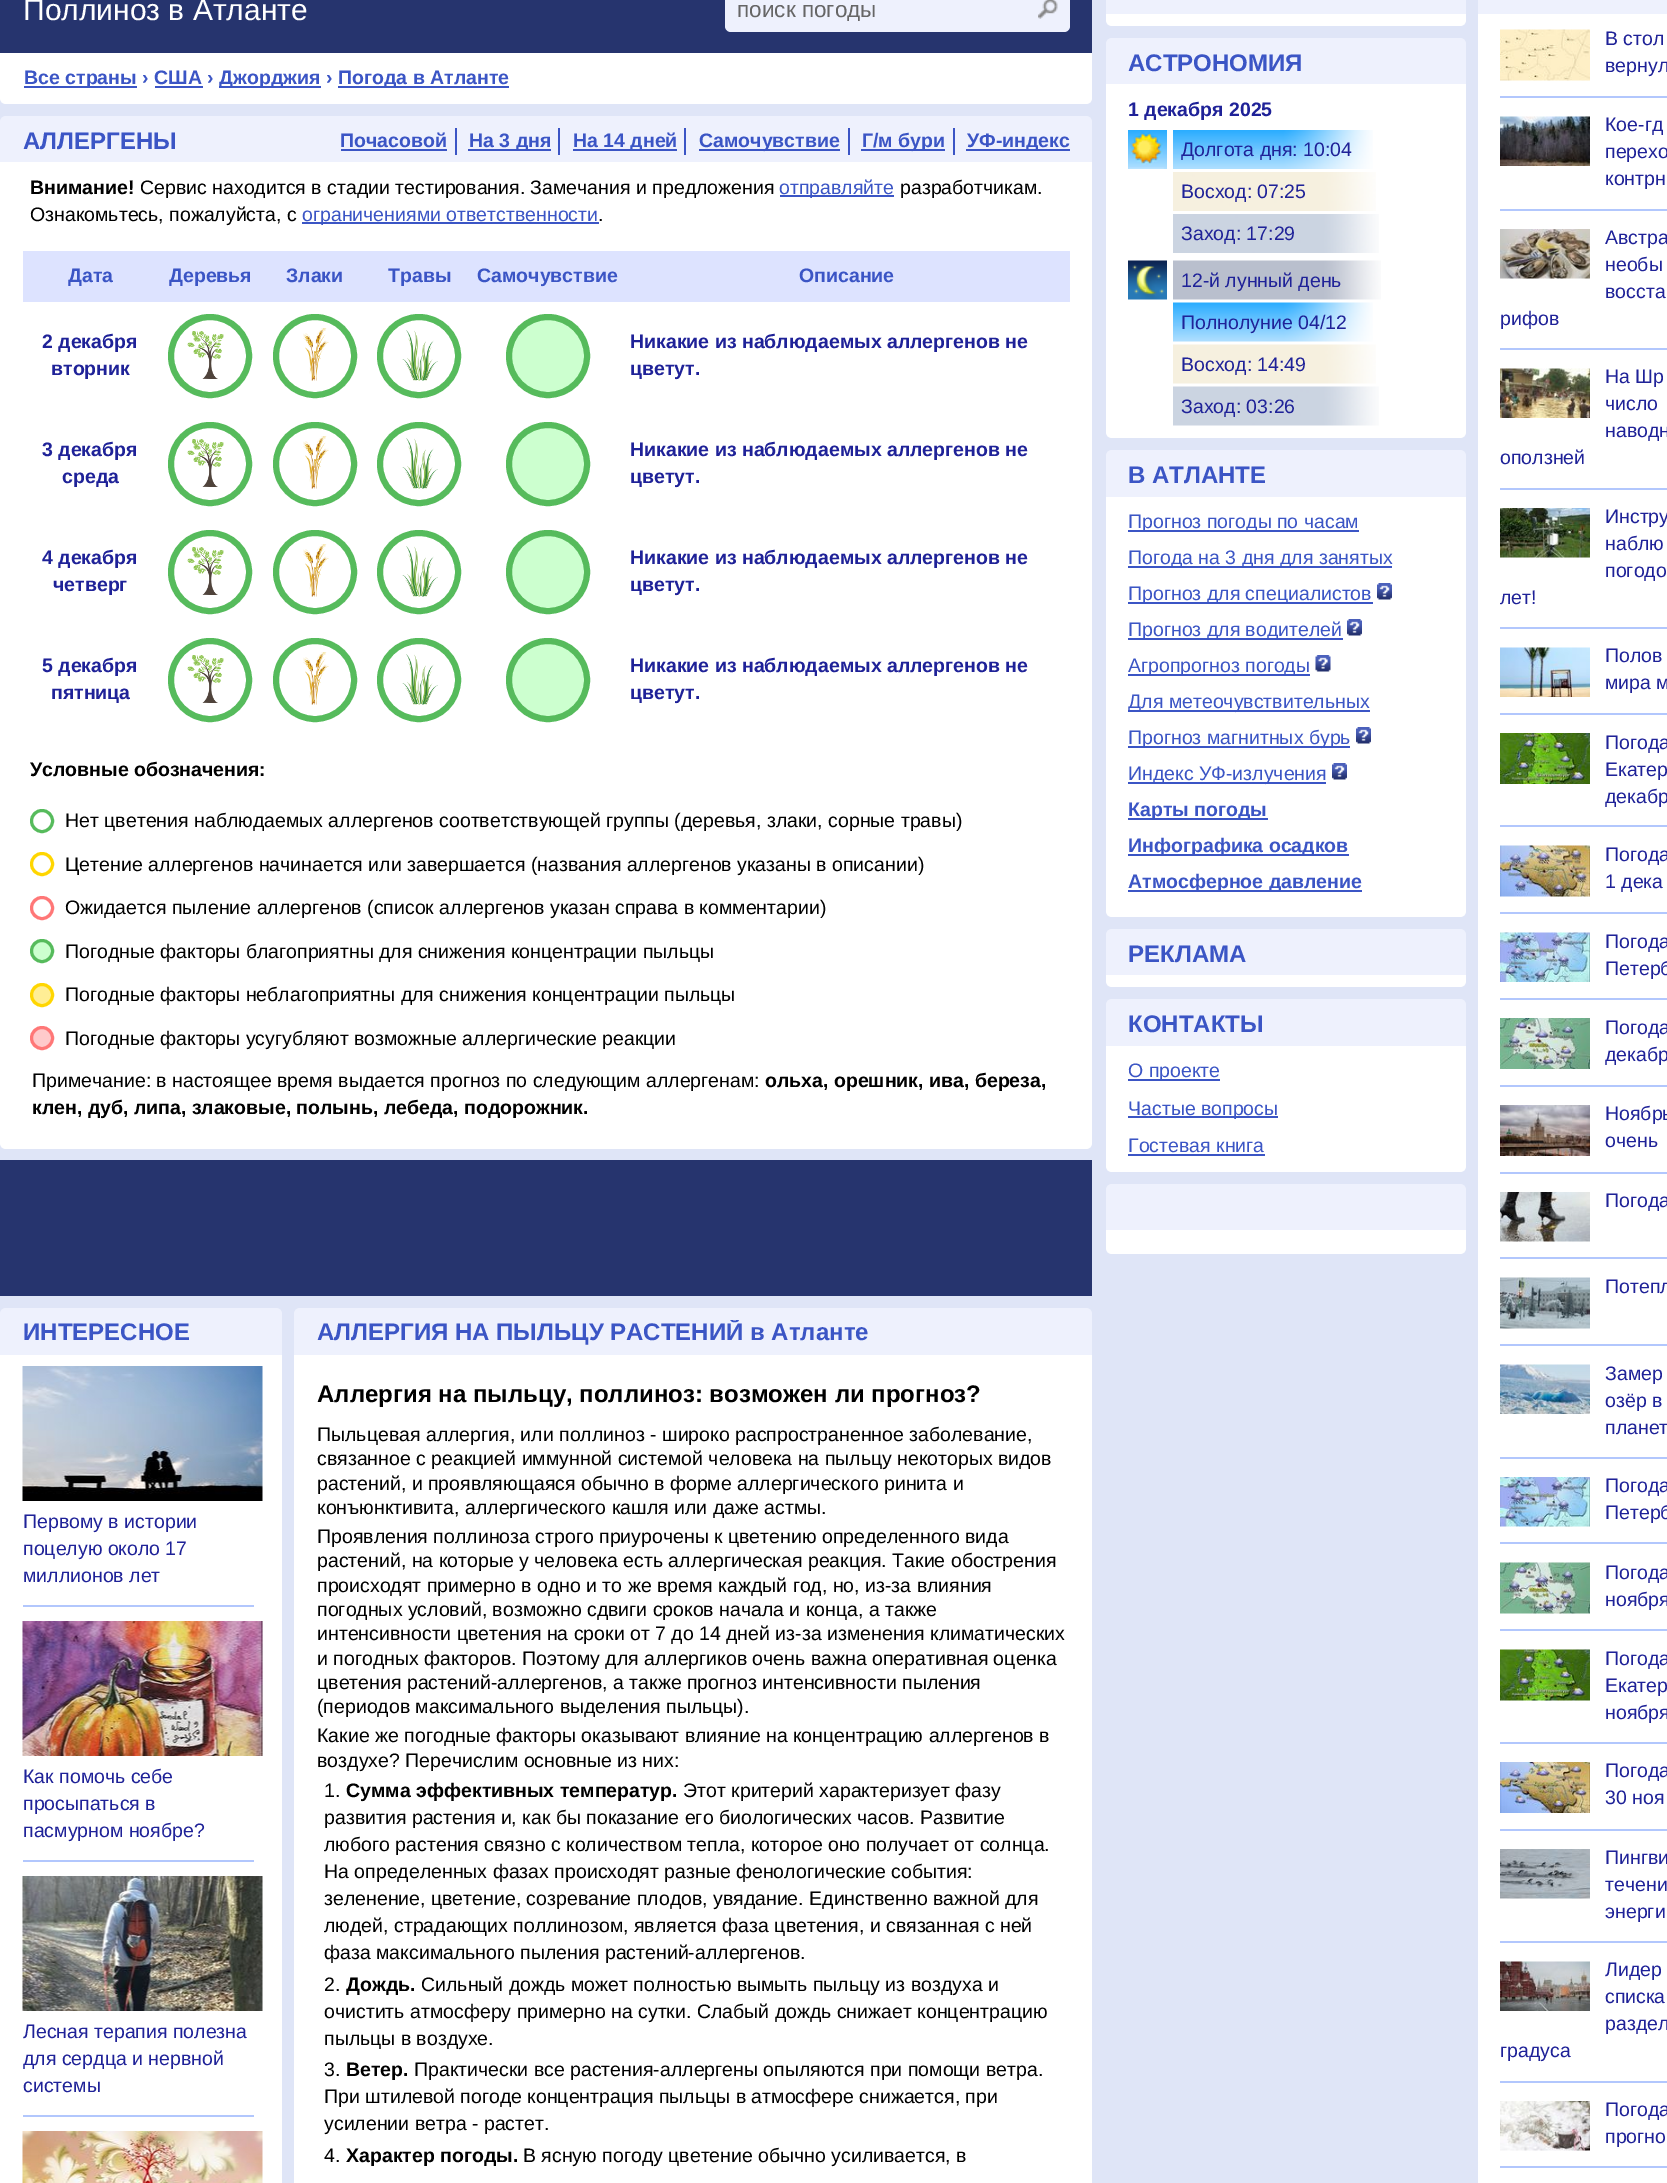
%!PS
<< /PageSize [1667 2183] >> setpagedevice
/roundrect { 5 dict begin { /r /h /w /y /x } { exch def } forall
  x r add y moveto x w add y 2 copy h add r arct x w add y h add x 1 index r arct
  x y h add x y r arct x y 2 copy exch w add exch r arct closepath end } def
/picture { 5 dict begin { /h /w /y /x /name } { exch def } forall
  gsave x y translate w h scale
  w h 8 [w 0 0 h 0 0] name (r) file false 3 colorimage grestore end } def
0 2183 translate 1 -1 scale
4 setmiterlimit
0.875 0.898 0.969 setrgbcolor
0 0 1667 2183 rectfill
0.149 0.204 0.431 setrgbcolor
0 0 1092 53 rectfill
/LiberationSans-Regular [30 0 0 -30 0 0] selectfont
1 setgray
23 20 moveto (Поллиноз в Атланте) show
0.933 0.945 0.992 setrgbcolor
725 -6 345 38 6 roundrect fill
gsave
737 0 333 21 rectclip
/LiberationSans-Regular [22.5 0 0 -22.5 0 0] selectfont
0.4 setgray
737 17 moveto (поиск погоды) show
grestore
(img1.rgb) 1038 0 20 19 picture
1 setgray
0 53 1092 39 rectfill
0.231 0.333 0.773 setrgbcolor
24 86 113 2 rectfill
/LiberationSans-Bold [19.5 0 0 -19.5 0 0] selectfont
24 84 moveto (Все страны › США ›) show
155 86 48 2 rectfill
219 86 102 2 rectfill
219 84 moveto (Джорджия ›) show
338 86 171 2 rectfill
338 84 moveto (Погода в Атланте) show
1 setgray
newpath 0 92 moveto 1092 92 lineto 1092 98 lineto 1092 101.5 1089.5 104 1086 104 curveto 6 104 lineto 2.5 104 0 101.5 0 98 curveto closepath fill
0.933 0.945 0.992 setrgbcolor
newpath 6 116 moveto 1086 116 lineto 1089.5 116 1092 118.5 1092 122 curveto 1092 162 lineto 0 162 lineto 0 122 lineto 0 118.5 2.5 116 6 116 curveto closepath fill
/LiberationSans-Bold [24 0 0 -24 0 0] selectfont
0.231 0.333 0.773 setrgbcolor
23 149 moveto (АЛЛЕРГЕНЫ) show
455 128 2 27 rectfill
/LiberationSans-Bold [19.5 0 0 -19.5 0 0] selectfont
340 147 moveto (Почасовой) show
341 149 106 2 rectfill
558 128 2 27 rectfill
468 149 83 2 rectfill
469 147 moveto (На 3 дня) show
684 128 2 27 rectfill
573 149 104 2 rectfill
573 147 moveto (На 14 дней) show
848 128 2 27 rectfill
699 149 141 2 rectfill
699 147 moveto (Самочувствие) show
953 128 2 27 rectfill
861 149 84 2 rectfill
862 147 moveto (Г/м бури) show
966 149 104 2 rectfill
967 147 moveto (УФ-индекс) show
1 setgray
0 162 1092 975 rectfill
0 setgray
30 194 moveto (Внимание!) show
/LiberationSans-Regular [19.5 0 0 -19.5 0 0] selectfont
140 194 moveto (Сервис находится в стадии тестирования. Замечания и предложения) show
0.231 0.333 0.773 setrgbcolor
780 195 114 2 rectfill
779 194 moveto (отправляйте) show
0 setgray
900 194 moveto (разработчикам.) show
30 221 moveto (Ознакомьтесь, пожалуйста, с) show
0.231 0.333 0.773 setrgbcolor
302 222 297 2 rectfill
302 221 moveto (ограничениями ответственности) show
0 setgray
598 221 moveto (.) show
0.867 0.89 1 setrgbcolor
23 251 1047 51 rectfill
/LiberationSans-Bold [19.5 0 0 -19.5 0 0] selectfont
0.231 0.333 0.773 setrgbcolor
68 282 moveto (Дата) show
169 282 moveto (Деревья) show
286 282 moveto (Злаки) show
388 282 moveto (Травы) show
477 282 moveto (Самочувствие) show
799 282 moveto (Описание) show
0.122 0.133 0.596 setrgbcolor
42 348 moveto (2 декабря) show
51 375 moveto (вторник) show
(img2.rgb) 187 331 37 48 picture
0.337 0.733 0.361 setrgbcolor
6 setlinewidth
newpath 210 356 39 0 360 arc closepath stroke
(img3.rgb) 303 328 26 53 picture
newpath 315 356 39 0 360 arc closepath stroke
(img4.rgb) 402 330 36 51 picture
newpath 419 356 39 0 360 arc closepath stroke
0.8 1 0.812 setrgbcolor
newpath 548 356 39 0 360 arc closepath gsave fill grestore
0.337 0.733 0.361 setrgbcolor
stroke
0.122 0.133 0.596 setrgbcolor
630 348 moveto (Никакие из наблюдаемых аллергенов не) show
630 375 moveto (цветут.) show
42 456 moveto (3 декабря) show
62 483 moveto (среда) show
(img2.rgb) 187 439 37 48 picture
0.337 0.733 0.361 setrgbcolor
newpath 210 464 39 0 360 arc closepath stroke
(img3.rgb) 303 436 26 53 picture
newpath 315 464 39 0 360 arc closepath stroke
(img5.rgb) 402 438 36 51 picture
newpath 419 464 39 0 360 arc closepath stroke
0.8 1 0.812 setrgbcolor
newpath 548 464 39 0 360 arc closepath gsave fill grestore
0.337 0.733 0.361 setrgbcolor
stroke
0.122 0.133 0.596 setrgbcolor
630 456 moveto (Никакие из наблюдаемых аллергенов не) show
630 483 moveto (цветут.) show
42 564 moveto (4 декабря) show
53 591 moveto (четверг) show
(img2.rgb) 187 547 37 48 picture
0.337 0.733 0.361 setrgbcolor
newpath 210 572 39 0 360 arc closepath stroke
(img3.rgb) 303 544 26 53 picture
newpath 315 572 39 0 360 arc closepath stroke
(img4.rgb) 402 546 36 51 picture
newpath 419 572 39 0 360 arc closepath stroke
0.8 1 0.812 setrgbcolor
newpath 548 572 39 0 360 arc closepath gsave fill grestore
0.337 0.733 0.361 setrgbcolor
stroke
0.122 0.133 0.596 setrgbcolor
630 564 moveto (Никакие из наблюдаемых аллергенов не) show
630 591 moveto (цветут.) show
42 672 moveto (5 декабря) show
51 699 moveto (пятница) show
(img2.rgb) 187 655 37 48 picture
0.337 0.733 0.361 setrgbcolor
newpath 210 680 39 0 360 arc closepath stroke
(img3.rgb) 303 652 26 53 picture
newpath 315 680 39 0 360 arc closepath stroke
(img4.rgb) 402 654 36 51 picture
newpath 419 680 39 0 360 arc closepath stroke
0.8 1 0.812 setrgbcolor
newpath 548 680 39 0 360 arc closepath gsave fill grestore
0.337 0.733 0.361 setrgbcolor
stroke
0.122 0.133 0.596 setrgbcolor
630 672 moveto (Никакие из наблюдаемых аллергенов не) show
630 699 moveto (цветут.) show
0 setgray
30 776 moveto (Условные обозначения:) show
0.337 0.733 0.361 setrgbcolor
3 setlinewidth
newpath 42 821 10.5 0 360 arc closepath stroke
/LiberationSans-Regular [19.5 0 0 -19.5 0 0] selectfont
0 setgray
65 827 moveto (Нет цветения наблюдаемых аллергенов соответствующей группы \(деревья, злаки, сорные травы\)) show
1 0.839 0 setrgbcolor
newpath 42 864 10.5 0 360 arc closepath stroke
0 setgray
65 871 moveto (Цетение аллергенов начинается или завершается \(названия аллергенов указаны в описании\)) show
1 0.467 0.467 setrgbcolor
newpath 42 908 10.5 0 360 arc closepath stroke
0 setgray
65 914 moveto (Ожидается пыление аллергенов \(список аллергенов указан справа в комментарии\)) show
0.8 1 0.812 setrgbcolor
newpath 42 951 10.5 0 360 arc closepath gsave fill grestore
0.337 0.733 0.361 setrgbcolor
stroke
0 setgray
65 958 moveto (Погодные факторы благоприятны для снижения концентрации пыльцы) show
1 0.933 0.584 setrgbcolor
newpath 42 995 10.5 0 360 arc closepath gsave fill grestore
1 0.839 0 setrgbcolor
stroke
0 setgray
65 1001 moveto (Погодные факторы неблагоприятны для снижения концентрации пыльцы) show
1 0.792 0.796 setrgbcolor
newpath 42 1038 10.5 0 360 arc closepath gsave fill grestore
1 0.467 0.467 setrgbcolor
stroke
0 setgray
65 1045 moveto (Погодные факторы усугубляют возможные аллергические реакции) show
32 1087 moveto (Примечание: в настоящее время выдается прогноз по следующим аллергенам:) show
/LiberationSans-Bold [19.5 0 0 -19.5 0 0] selectfont
765 1087 moveto (ольха, орешник, ива, береза,) show
32 1114 moveto (клен, дуб, липа, злаковые, полынь, лебеда, подорожник.) show
1 setgray
newpath 0 1137 moveto 1092 1137 lineto 1092 1143 lineto 1092 1146.5 1089.5 1149 1086 1149 curveto 6 1149 lineto 2.5 1149 0 1146.5 0 1143 curveto closepath fill
0.149 0.204 0.431 setrgbcolor
0 1160 1092 136 rectfill
0.933 0.945 0.992 setrgbcolor
newpath 6 1308 moveto 276 1308 lineto 279.5 1308 282 1310.5 282 1314 curveto 282 1355 lineto 0 1355 lineto 0 1314 lineto 0 1310.5 2.5 1308 6 1308 curveto closepath fill
/LiberationSans-Bold [24 0 0 -24 0 0] selectfont
0.231 0.333 0.773 setrgbcolor
23 1340 moveto (ИНТЕРЕСНОЕ) show
1 setgray
0 1355 282 828 rectfill
(img6.rgb) 22 1366 241 135 picture
/LiberationSans-Regular [19.5 0 0 -19.5 0 0] selectfont
0.122 0.133 0.596 setrgbcolor
23 1528 moveto (Первому в истории) show
23 1555 moveto (поцелую около 17) show
23 1582 moveto (миллионов лет) show
0.698 0.78 0.992 setrgbcolor
23 1605 231 2 rectfill
(img7.rgb) 22 1621 241 135 picture
0.122 0.133 0.596 setrgbcolor
23 1783 moveto (Как помочь себе) show
23 1810 moveto (просыпаться в) show
23 1837 moveto (пасмурном ноябре?) show
0.698 0.78 0.992 setrgbcolor
23 1860 231 2 rectfill
(img8.rgb) 22 1876 241 135 picture
0.122 0.133 0.596 setrgbcolor
23 2038 moveto (Лесная терапия полезна) show
23 2065 moveto (для сердца и нервной) show
23 2092 moveto (системы) show
0.698 0.78 0.992 setrgbcolor
23 2115 231 2 rectfill
(img9.rgb) 22 2131 241 52 picture
0.933 0.945 0.992 setrgbcolor
newpath 300 1308 moveto 1086 1308 lineto 1089.5 1308 1092 1310.5 1092 1314 curveto 1092 1355 lineto 294 1355 lineto 294 1314 lineto 294 1310.5 296.5 1308 300 1308 curveto closepath fill
gsave
317 1320 552 27 rectclip
/LiberationSans-Bold [24 0 0 -24 0 0] selectfont
0.231 0.333 0.773 setrgbcolor
317 1340 moveto (АЛЛЕРГИЯ НА ПЫЛЬЦУ РАСТЕНИЙ в Атланте) show
grestore
1 setgray
294 1355 798 828 rectfill
/LiberationSans-Bold [24 0 0 -24 0 0] selectfont
0 setgray
317 1402 moveto (Аллергия на пыльцу, поллиноз: возможен ли прогноз?) show
/LiberationSans-Regular [19.5 0 0 -19.5 0 0] selectfont
317 1441 moveto (Пыльцевая аллергия, или поллиноз - широко распространенное заболевание,) show
317 1465 moveto (связанное с реакцией иммунной системой человека на пыльцу некоторых видов) show
317 1490 moveto (растений, и проявляющаяся обычно в форме аллергического ринита и) show
317 1514 moveto (конъюнктивита, аллергического кашля или даже астмы.) show
317 1543 moveto (Проявления поллиноза строго приурочены к цветению определенного вида) show
317 1567 moveto (растений, на которые у человека есть аллергическая реакция. Такие обострения) show
317 1592 moveto (происходят примерно в одно и то же время каждый год, но, из-за влияния) show
317 1616 moveto (погодных условий, возможно сдвиги сроков начала и конца, а также) show
317 1640 moveto (интенсивности цветения на сроки от 7 до 14 дней из-за изменения климатических) show
317 1665 moveto (и погодных факторов. Поэтому для аллергиков очень важна оперативная оценка) show
317 1689 moveto (цветения растений-аллергенов, а также прогноз интенсивности пыления) show
317 1713 moveto (\(периодов максимального выделения пыльцы\).) show
317 1742 moveto (Какие же погодные факторы оказывают влияние на концентрацию аллергенов в) show
317 1767 moveto (воздухе? Перечислим основные из них:) show
324 1797 moveto (1.) show
/LiberationSans-Bold [19.5 0 0 -19.5 0 0] selectfont
346 1797 moveto (Сумма эффективных температур.) show
/LiberationSans-Regular [19.5 0 0 -19.5 0 0] selectfont
683 1797 moveto (Этот критерий характеризует фазу) show
324 1824 moveto (развития растения и, как бы показание его биологических часов. Развитие) show
324 1851 moveto (любого растения связно с количеством тепла, которое оно получает от солнца.) show
324 1878 moveto (На определенных фазах происходят разные фенологические события:) show
324 1905 moveto (зеленение, цветение, созревание плодов, увядание. Единственно важной для) show
324 1932 moveto (людей, страдающих поллинозом, является фаза цветения, и связанная с ней) show
324 1959 moveto (фаза максимального пыления растений-аллергенов.) show
324 1991 moveto (2.) show
/LiberationSans-Bold [19.5 0 0 -19.5 0 0] selectfont
346 1991 moveto (Дождь.) show
/LiberationSans-Regular [19.5 0 0 -19.5 0 0] selectfont
421 1991 moveto (Сильный дождь может полностью вымыть пыльцу из воздуха и) show
324 2018 moveto (очистить атмосферу примерно на сутки. Слабый дождь снижает концентрацию) show
324 2045 moveto (пыльцы в воздухе.) show
324 2076 moveto (3.) show
/LiberationSans-Bold [19.5 0 0 -19.5 0 0] selectfont
346 2076 moveto (Ветер.) show
/LiberationSans-Regular [19.5 0 0 -19.5 0 0] selectfont
414 2076 moveto (Практически все растения-аллергены опыляются при помощи ветра.) show
324 2103 moveto (При штилевой погоде концентрация пыльцы в атмосфере снижается, при) show
324 2130 moveto (усилении ветра - растет.) show
324 2162 moveto (4.) show
/LiberationSans-Bold [19.5 0 0 -19.5 0 0] selectfont
346 2162 moveto (Характер погоды.) show
/LiberationSans-Regular [19.5 0 0 -19.5 0 0] selectfont
523 2162 moveto (В ясную погоду цветение обычно усиливается, в) show
0.933 0.945 0.992 setrgbcolor
1106 0 360 14 rectfill
1 setgray
newpath 1106 14 moveto 1466 14 lineto 1466 20 lineto 1466 23.5 1463.5 26 1460 26 curveto 1112 26 lineto 1108.5 26 1106 23.5 1106 20 curveto closepath fill
0.933 0.945 0.992 setrgbcolor
newpath 1112 38 moveto 1460 38 lineto 1463.5 38 1466 40.5 1466 44 curveto 1466 84 lineto 1106 84 lineto 1106 44 lineto 1106 40.5 1108.5 38 1112 38 curveto closepath fill
/LiberationSans-Bold [24 0 0 -24 0 0] selectfont
0.231 0.333 0.773 setrgbcolor
1128 71 moveto (АСТРОНОМИЯ) show
1 setgray
1106 84 360 342 rectfill
/LiberationSans-Bold [19.5 0 0 -19.5 0 0] selectfont
0.122 0.133 0.596 setrgbcolor
1128 116 moveto (1 декабря 2025) show
(img10.rgb) 1128 130 39 39 picture
(img11.rgb) 1173 130 200 39 picture
/LiberationSans-Regular [19.5 0 0 -19.5 0 0] selectfont
1181 156 moveto (Долгота дня: 10:04) show
(img12.rgb) 1173 172 203 39 picture
1181 198 moveto (Восход: 07:25) show
(img13.rgb) 1173 214 206 39 picture
1181 240 moveto (Заход: 17:29) show
(img14.rgb) 1128 260 39 40 picture
(img15.rgb) 1173 260 208 40 picture
1181 287 moveto (12-й лунный день) show
(img16.rgb) 1173 302 200 40 picture
1181 329 moveto (Полнолуние 04/12) show
(img17.rgb) 1173 344 203 40 picture
1181 371 moveto (Восход: 14:49) show
(img18.rgb) 1173 386 206 40 picture
1181 413 moveto (Заход: 03:26) show
1 setgray
newpath 1106 426 moveto 1466 426 lineto 1466 432 lineto 1466 435.5 1463.5 438 1460 438 curveto 1112 438 lineto 1108.5 438 1106 435.5 1106 432 curveto closepath fill
0.933 0.945 0.992 setrgbcolor
newpath 1112 450 moveto 1460 450 lineto 1463.5 450 1466 452.5 1466 456 curveto 1466 497 lineto 1106 497 lineto 1106 456 lineto 1106 452.5 1108.5 450 1112 450 curveto closepath fill
/LiberationSans-Bold [24 0 0 -24 0 0] selectfont
0.231 0.333 0.773 setrgbcolor
1128 483 moveto (В АТЛАНТЕ) show
1 setgray
1106 497 360 408 rectfill
0.231 0.333 0.773 setrgbcolor
1128 530 231 2 rectfill
/LiberationSans-Regular [19.5 0 0 -19.5 0 0] selectfont
1128 528 moveto (Прогноз погоды по часам) show
1128 566 264 2 rectfill
1128 564 moveto (Погода на 3 дня для занятых) show
1128 602 245 2 rectfill
1128 600 moveto (Прогноз для специалистов) show
(img19.rgb) 1377 583 15 17 picture
1128 638 215 2 rectfill
1128 636 moveto (Прогноз для водителей) show
(img20.rgb) 1347 619 15 17 picture
1128 674 182 2 rectfill
1128 672 moveto (Агропрогноз погоды) show
(img21.rgb) 1315 655 16 17 picture
1128 710 242 2 rectfill
1128 708 moveto (Для метеочувствительных) show
1128 746 222 2 rectfill
1128 744 moveto (Прогноз магнитных бурь) show
(img20.rgb) 1356 727 15 17 picture
1128 782 198 2 rectfill
1128 780 moveto (Индекс УФ-излучения) show
(img20.rgb) 1332 763 15 17 picture
1128 818 140 2 rectfill
/LiberationSans-Bold [19.5 0 0 -19.5 0 0] selectfont
1128 816 moveto (Карты погоды) show
1128 854 221 2 rectfill
1128 852 moveto (Инфографика осадков) show
1128 890 234 2 rectfill
1128 888 moveto (Атмосферное давление) show
1 setgray
newpath 1106 905 moveto 1466 905 lineto 1466 911 lineto 1466 914.5 1463.5 917 1460 917 curveto 1112 917 lineto 1108.5 917 1106 914.5 1106 911 curveto closepath fill
0.933 0.945 0.992 setrgbcolor
newpath 1112 929 moveto 1460 929 lineto 1463.5 929 1466 931.5 1466 935 curveto 1466 975 lineto 1106 975 lineto 1106 935 lineto 1106 931.5 1108.5 929 1112 929 curveto closepath fill
/LiberationSans-Bold [24 0 0 -24 0 0] selectfont
0.231 0.333 0.773 setrgbcolor
1128 962 moveto (РЕКЛАМА) show
1 setgray
newpath 1106 975 moveto 1466 975 lineto 1466 981 lineto 1466 984.5 1463.5 987 1460 987 curveto 1112 987 lineto 1108.5 987 1106 984.5 1106 981 curveto closepath fill
0.933 0.945 0.992 setrgbcolor
newpath 1112 999 moveto 1460 999 lineto 1463.5 999 1466 1001.5 1466 1005 curveto 1466 1046 lineto 1106 1046 lineto 1106 1005 lineto 1106 1001.5 1108.5 999 1112 999 curveto closepath fill
0.231 0.333 0.773 setrgbcolor
1128 1032 moveto (КОНТАКТЫ) show
1 setgray
1106 1046 360 114 rectfill
0.231 0.333 0.773 setrgbcolor
1128 1079 92 2 rectfill
/LiberationSans-Regular [19.5 0 0 -19.5 0 0] selectfont
1128 1077 moveto (О проекте) show
1128 1116 150 2 rectfill
1128 1115 moveto (Частые вопросы) show
1128 1152 moveto (Гостевая книга) show
1128 1154 137 2 rectfill
1 setgray
newpath 1106 1160 moveto 1466 1160 lineto 1466 1166 lineto 1466 1169.5 1463.5 1172 1460 1172 curveto 1112 1172 lineto 1108.5 1172 1106 1169.5 1106 1166 curveto closepath fill
0.933 0.945 0.992 setrgbcolor
newpath 1112 1184 moveto 1460 1184 lineto 1463.5 1184 1466 1186.5 1466 1190 curveto 1466 1230 lineto 1106 1230 lineto 1106 1190 lineto 1106 1186.5 1108.5 1184 1112 1184 curveto closepath fill
1 setgray
1106 1230 360 12 rectfill
newpath 1106 1242 moveto 1466 1242 lineto 1466 1248 lineto 1466 1251.5 1463.5 1254 1460 1254 curveto 1112 1254 lineto 1108.5 1254 1106 1251.5 1106 1248 curveto closepath fill
0.933 0.945 0.992 setrgbcolor
1478 0 189 14 rectfill
1 setgray
1478 14 189 2169 rectfill
(img22.rgb) 1500 29 90 52 picture
0.122 0.133 0.596 setrgbcolor
1605 45 moveto (В стол) show
1605 72 moveto (вернул) show
0.698 0.78 0.992 setrgbcolor
1500 96 167 2 rectfill
(img23.rgb) 1500 116 90 50 picture
0.122 0.133 0.596 setrgbcolor
1605 131 moveto (Кое-гд) show
1605 158 moveto (перехо) show
1605 185 moveto (контрн) show
0.698 0.78 0.992 setrgbcolor
1500 209 167 2 rectfill
(img24.rgb) 1500 229 90 50 picture
0.122 0.133 0.596 setrgbcolor
1605 244 moveto (Австра) show
1605 271 moveto (необы) show
1605 298 moveto (восста) show
1500 325 moveto (рифов) show
0.698 0.78 0.992 setrgbcolor
1500 348 167 2 rectfill
(img25.rgb) 1500 368 90 50 picture
0.122 0.133 0.596 setrgbcolor
1605 383 moveto (На Шр) show
1605 410 moveto (число) show
1605 437 moveto (наводн) show
1500 464 moveto (оползней) show
0.698 0.78 0.992 setrgbcolor
1500 488 167 2 rectfill
(img26.rgb) 1500 508 90 50 picture
0.122 0.133 0.596 setrgbcolor
1605 523 moveto (Инстру) show
1605 550 moveto (наблю) show
1605 577 moveto (погодо) show
1500 604 moveto (лет!) show
0.698 0.78 0.992 setrgbcolor
1500 627 167 2 rectfill
(img27.rgb) 1500 647 90 50 picture
0.122 0.133 0.596 setrgbcolor
1605 662 moveto (Полов) show
1605 689 moveto (мира м) show
0.698 0.78 0.992 setrgbcolor
1500 713 167 2 rectfill
(img28.rgb) 1500 733 90 51 picture
0.122 0.133 0.596 setrgbcolor
1605 749 moveto (Погода) show
1605 776 moveto (Екатер) show
1605 803 moveto (декабр) show
0.698 0.78 0.992 setrgbcolor
1500 825 167 2 rectfill
(img29.rgb) 1500 845 90 52 picture
0.122 0.133 0.596 setrgbcolor
1605 861 moveto (Погода) show
1605 888 moveto (1 дека) show
0.698 0.78 0.992 setrgbcolor
1500 912 167 2 rectfill
(img30.rgb) 1500 932 90 50 picture
0.122 0.133 0.596 setrgbcolor
1605 948 moveto (Погода) show
1605 975 moveto (Петерб) show
0.698 0.78 0.992 setrgbcolor
1500 998 167 2 rectfill
(img31.rgb) 1500 1018 90 51 picture
0.122 0.133 0.596 setrgbcolor
1605 1034 moveto (Погода) show
1605 1061 moveto (декабр) show
0.698 0.78 0.992 setrgbcolor
1500 1085 167 2 rectfill
(img32.rgb) 1500 1105 90 51 picture
0.122 0.133 0.596 setrgbcolor
1605 1120 moveto (Ноябрь) show
1605 1147 moveto (очень) show
0.698 0.78 0.992 setrgbcolor
1500 1172 167 2 rectfill
(img33.rgb) 1500 1192 90 50 picture
0.122 0.133 0.596 setrgbcolor
1605 1207 moveto (Погода) show
0.698 0.78 0.992 setrgbcolor
1500 1257 167 2 rectfill
(img34.rgb) 1500 1277 90 52 picture
0.122 0.133 0.596 setrgbcolor
1605 1293 moveto (Потепл) show
0.698 0.78 0.992 setrgbcolor
1500 1344 167 2 rectfill
(img35.rgb) 1500 1364 90 50 picture
0.122 0.133 0.596 setrgbcolor
1605 1380 moveto (Замер) show
1605 1407 moveto (озёр в) show
1605 1434 moveto (планет) show
0.698 0.78 0.992 setrgbcolor
1500 1457 167 2 rectfill
(img36.rgb) 1500 1477 90 50 picture
0.122 0.133 0.596 setrgbcolor
1605 1492 moveto (Погода) show
1605 1519 moveto (Петерб) show
0.698 0.78 0.992 setrgbcolor
1500 1542 167 2 rectfill
(img37.rgb) 1500 1562 90 52 picture
0.122 0.133 0.596 setrgbcolor
1605 1579 moveto (Погода) show
1605 1606 moveto (ноября) show
0.698 0.78 0.992 setrgbcolor
1500 1629 167 2 rectfill
(img38.rgb) 1500 1649 90 52 picture
0.122 0.133 0.596 setrgbcolor
1605 1665 moveto (Погода) show
1605 1692 moveto (Екатер) show
1605 1719 moveto (ноября) show
0.698 0.78 0.992 setrgbcolor
1500 1742 167 2 rectfill
(img39.rgb) 1500 1762 90 51 picture
0.122 0.133 0.596 setrgbcolor
1605 1777 moveto (Погода) show
1605 1804 moveto (30 ноя) show
0.698 0.78 0.992 setrgbcolor
1500 1829 167 2 rectfill
(img40.rgb) 1500 1849 90 50 picture
0.122 0.133 0.596 setrgbcolor
1605 1864 moveto (Пингви) show
1605 1891 moveto (течени) show
1605 1918 moveto (энерги) show
0.698 0.78 0.992 setrgbcolor
1500 1941 167 2 rectfill
(img41.rgb) 1500 1961 90 50 picture
0.122 0.133 0.596 setrgbcolor
1605 1976 moveto (Лидер) show
1605 2003 moveto (списка) show
1605 2030 moveto (раздел) show
1500 2057 moveto (градуса) show
0.698 0.78 0.992 setrgbcolor
1500 2081 167 2 rectfill
(img42.rgb) 1500 2101 90 50 picture
0.122 0.133 0.596 setrgbcolor
1605 2116 moveto (Погода) show
1605 2143 moveto (прогно) show
0.698 0.78 0.992 setrgbcolor
1500 2166 167 2 rectfill
showpage
